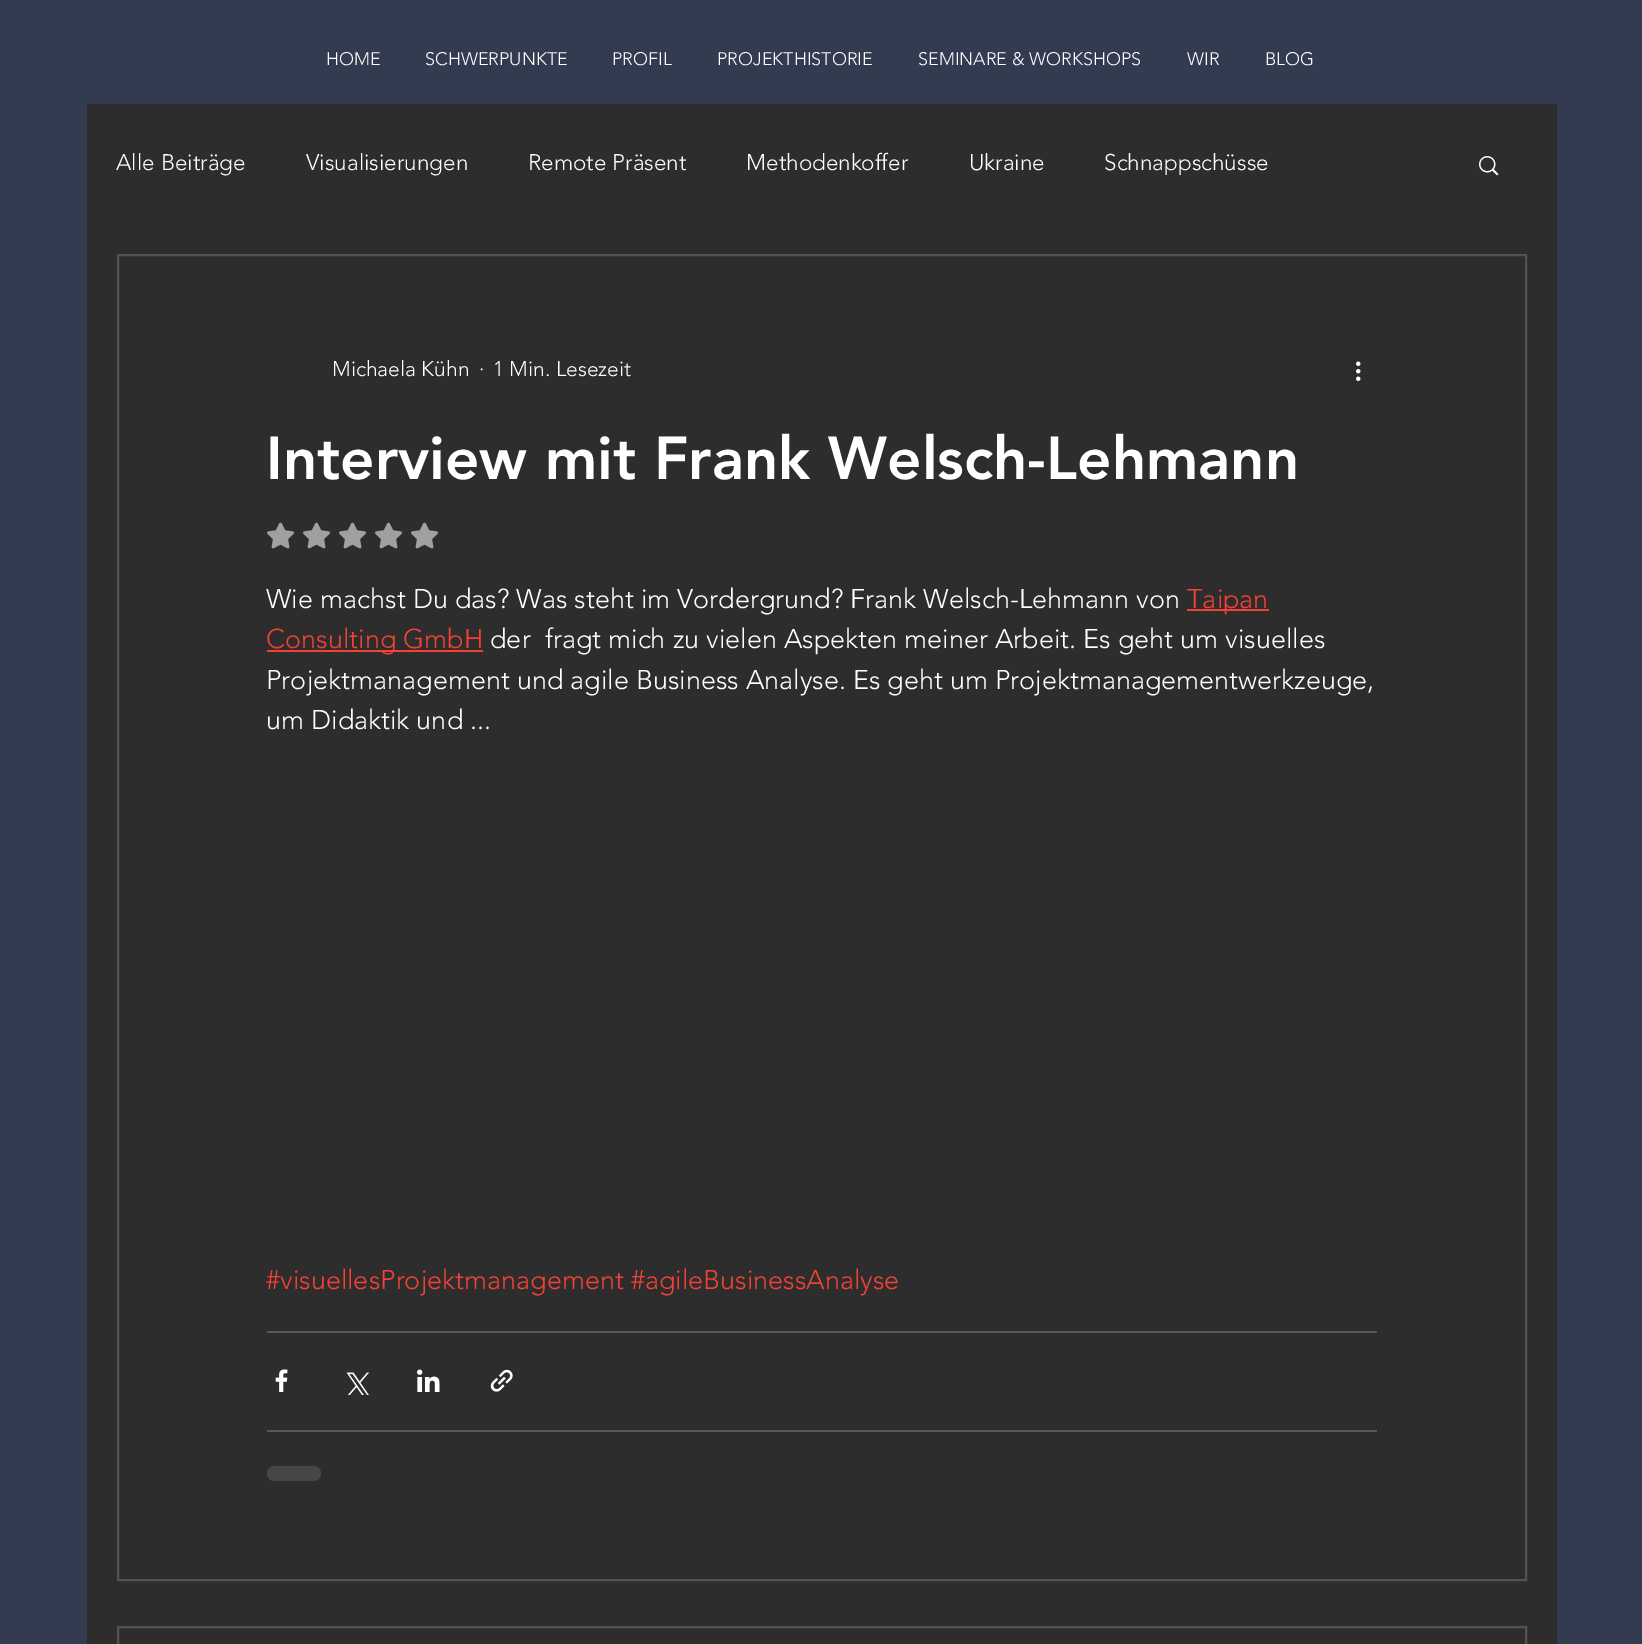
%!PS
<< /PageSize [1642 1644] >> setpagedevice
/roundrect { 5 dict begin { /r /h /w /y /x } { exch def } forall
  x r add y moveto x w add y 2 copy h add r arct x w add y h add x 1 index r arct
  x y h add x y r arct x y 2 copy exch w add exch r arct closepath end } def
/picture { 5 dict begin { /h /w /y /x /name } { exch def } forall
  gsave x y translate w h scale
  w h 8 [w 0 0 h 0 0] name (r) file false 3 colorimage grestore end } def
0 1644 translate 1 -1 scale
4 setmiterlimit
0.2 0.231 0.314 setrgbcolor
0 0 1642 1644 rectfill
/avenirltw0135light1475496-Light [18 0 0 -18 0 0] selectfont
1 setgray
326 65 moveto (HOME) show
425 65 moveto (SCHWERPUNKTE) show
612 65 moveto (PROFIL) show
717 65 moveto (PROJEKTHISTORIE) show
918 65 moveto (SEMINARE & WORKSHOPS) show
1187 65 moveto (WIR) show
1265 65 moveto (BLOG) show
0.176 setgray
87 104 1470 1540 rectfill
/avenirltw0135light1475496-Light [22.5 0 0 -22.5 0 0] selectfont
1 setgray
116 170 moveto (Alle Beiträge) show
306 170 moveto (Visualisierungen) show
528 170 moveto (Remote Präsent) show
746 170 moveto (Methodenkoffer) show
969 170 moveto (Ukraine) show
1104 170 moveto (Schnappschüsse) show
(img1.rgb) 1479 156 20 20 picture
0.325 0.322 0.322 setrgbcolor
2 setlinewidth
118 255 1408 1325 rectstroke
/avenirltw0135light1475496-Light [21 0 0 -21 0 0] selectfont
1 setgray
332 376 moveto (Michaela Kühn) show
479 376 moveto (·) show
493 376 moveto (1 Min. Lesezeit) show
(img2.rgb) 1356 361 5 20 picture
/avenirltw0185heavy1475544-Black [60 0 0 -60 0 0] selectfont
266 479 moveto (Interview mit Frank Welsch-Lehmann) show
(img3.rgb) 267 522 27 27 picture
(img3.rgb) 303 522 27 27 picture
(img3.rgb) 339 522 27 27 picture
(img3.rgb) 375 522 27 27 picture
(img3.rgb) 411 522 27 27 picture
/avenirltw0135light1475496-Light [27 0 0 -27 0 0] selectfont
266 608 moveto (Wie machst Du das? Was steht im Vordergrund? Frank Welsch-Lehmann von) show
0.953 0.259 0.208 setrgbcolor
1187 609 82 2 rectfill
1187 608 moveto (Taipan) show
267 650 216 2 rectfill
266 648 moveto (Consulting GmbH) show
1 setgray
490 648 moveto (der  fragt mich zu vielen Aspekten meiner Arbeit. Es geht um visuelles) show
266 689 moveto (Projektmanagement und agile Business Analyse. Es geht um Projektmanagementwerkzeuge,) show
266 729 moveto (um Didaktik und ...) show
0.953 0.259 0.208 setrgbcolor
266 1289 moveto (#visuellesProjektmanagement #agileBusinessAnalyse) show
0.341 setgray
267 1331 1110 2 rectfill
(img4.rgb) 275 1369 13 23 picture
(img5.rgb) 346 1372 23 23 picture
(img6.rgb) 417 1369 23 23 picture
(img7.rgb) 490 1369 23 23 picture
267 1430 1110 2 rectfill
0.275 setgray
267 1466 54 15 7.5 roundrect fill
0.325 0.322 0.322 setrgbcolor
118 1627 1408 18 rectstroke
showpage
